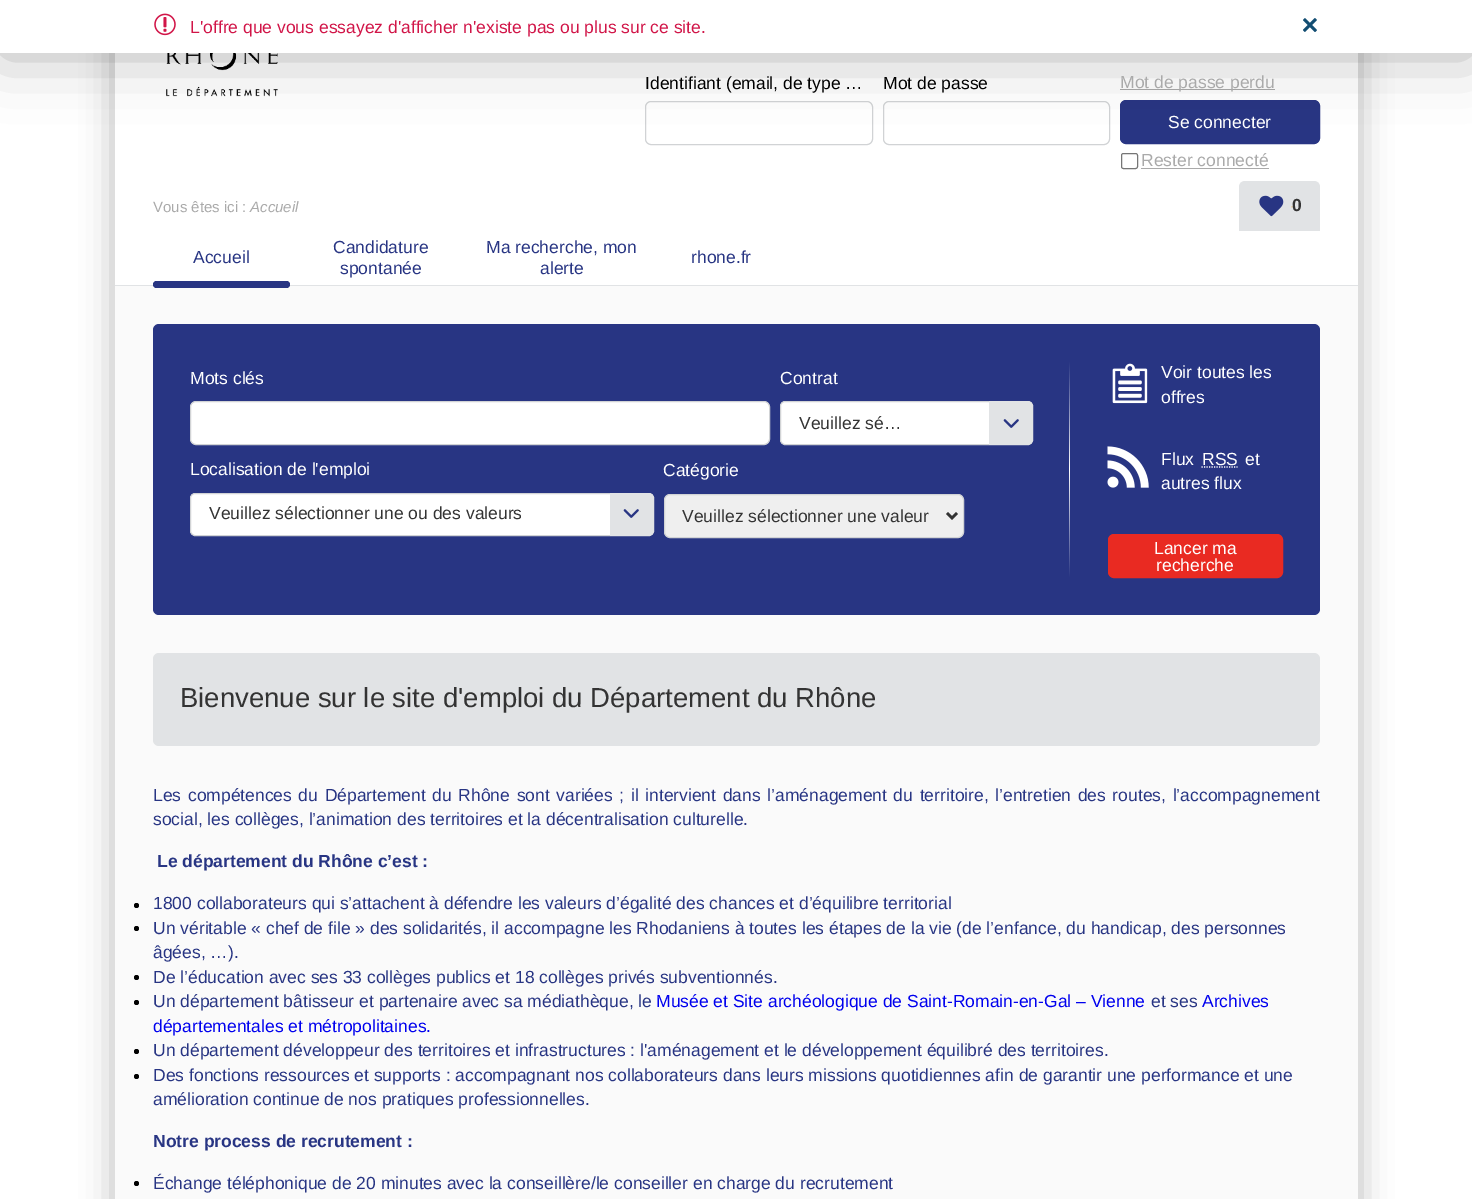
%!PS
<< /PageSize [1472 1199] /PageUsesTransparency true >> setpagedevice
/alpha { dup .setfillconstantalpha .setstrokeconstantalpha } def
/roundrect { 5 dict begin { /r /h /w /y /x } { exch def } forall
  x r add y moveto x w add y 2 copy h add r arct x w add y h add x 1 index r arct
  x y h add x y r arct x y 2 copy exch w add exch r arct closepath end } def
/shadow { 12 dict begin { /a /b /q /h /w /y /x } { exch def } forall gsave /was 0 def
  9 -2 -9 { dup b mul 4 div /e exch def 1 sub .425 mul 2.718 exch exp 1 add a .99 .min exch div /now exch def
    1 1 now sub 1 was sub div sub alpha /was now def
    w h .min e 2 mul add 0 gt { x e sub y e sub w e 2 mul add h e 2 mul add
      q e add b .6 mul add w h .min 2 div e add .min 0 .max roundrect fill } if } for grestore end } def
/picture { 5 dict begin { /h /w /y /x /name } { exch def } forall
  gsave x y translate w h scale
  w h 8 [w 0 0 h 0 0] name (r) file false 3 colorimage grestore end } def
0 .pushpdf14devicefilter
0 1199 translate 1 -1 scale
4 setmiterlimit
1 setgray
0 0 1472 1199 rectfill
0 setgray
113 -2 1247 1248 0 15.5 0.25 shadow
1 setgray
115 53 1243 232 rectfill
0.98 setgray
115 286 1243 913 rectfill
(img6.rgb) 166 53 112 44 picture
0.82 0.827 0.835 setrgbcolor
645.5 101.5 227 43 5.5 roundrect stroke
883.5 101.5 226 43 5.5 roundrect stroke
0.667 setgray
1120 89 155 1 rectfill
0.157 0.208 0.514 setrgbcolor
1120.5 100.5 199 43 5.5 roundrect gsave fill grestore
stroke
0 setgray
0 3 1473 52 0 31 0.3 shadow
1 setgray
0 0 1472 53 rectfill
(img1.rgb) 154 13 22 23 picture
/LiberationSans-Regular [17.5 0 0 -17.5 0 0] selectfont
0.82 0.082 0.282 setrgbcolor
190 33 moveto (L'offre que vous essayez d'afficher n'existe pas ou plus sur ce site.) show
(img2.rgb) 1303 18 14 14 picture
0.157 0.208 0.514 setrgbcolor
153 324 1167 291 6 roundrect fill
1 setgray
190 384 moveto (Mots clés) show
190.5 401.5 579 43 5.5 roundrect gsave fill grestore
0.82 0.827 0.835 setrgbcolor
stroke
1 setgray
780 384 moveto (Contrat) show
780.5 401.5 252 43 4.5 roundrect gsave fill grestore
0.82 0.827 0.835 setrgbcolor
stroke
0.2 setgray
799 429 moveto (Veuillez sé…) show
0.882 0.89 0.898 setrgbcolor
newpath 989 401 moveto 1027 401 lineto 1030.5 401 1033 403.5 1033 407 curveto 1033 439 lineto 1033 442.5 1030.5 445 1027 445 curveto 989 445 lineto closepath fill
(img3.rgb) 1003 419 16 9 picture
gsave newpath 1069 361 moveto 1070 361 lineto 1070 469 lineto 1069 469 lineto closepath clip newpath
<< /ShadingType 2 /ColorSpace /DeviceRGB /Coords [1069 361 1069 469] /Extend [true true] /Function << /FunctionType 2 /Domain [0 1] /C0 [0.157 0.208 0.514] /C1 [1 1 1] /N 1 >> >> shfill grestore
1 setgray
190 475 moveto (Localisation de l'emploi) show
190.5 493.5 463 42 4.5 roundrect gsave fill grestore
0.82 0.827 0.835 setrgbcolor
stroke
0.2 setgray
209 519 moveto (Veuillez sélectionner une ou des valeurs) show
0.882 0.89 0.898 setrgbcolor
newpath 610 493 moveto 648 493 lineto 651.5 493 654 495.5 654 499 curveto 654 530 lineto 654 533.5 651.5 536 648 536 curveto 610 536 lineto closepath fill
(img3.rgb) 623 509 16 9 picture
1 setgray
663 476 moveto (Catégorie) show
0.937 setgray
664.5 494.5 299 43 5.5 roundrect gsave fill grestore
0.82 0.827 0.835 setrgbcolor
stroke
0.2 setgray
2.5 setlinewidth
newpath 947 513 moveto 952 518 lineto 957 513 lineto stroke
682 522 moveto (Veuillez sélectionner une valeur) show
gsave newpath 1069 469 moveto 1070 469 lineto 1070 578 lineto 1069 578 lineto closepath clip newpath
<< /ShadingType 2 /ColorSpace /DeviceRGB /Coords [1069 469 1069 578] /Extend [true true] /Function << /FunctionType 2 /Domain [0 1] /C0 [1 1 1] /C1 [0.157 0.208 0.514] /N 1 >> >> shfill grestore
(img4.rgb) 1112 363 36 41 picture
1 setgray
1161 378 moveto (Voir toutes les) show
1161 403 moveto (offres) show
(img5.rgb) 1107 446 42 42 picture
1161 465 moveto (Flux) show
1202 465 moveto (RSS) show
1.2 setlinewidth
[1.25 1.25] 0 setdash
newpath 1201.5 467 moveto 1237.5 467 lineto stroke
1245 465 moveto (et) show
1161 489 moveto (autres flux) show
0.914 0.165 0.133 setrgbcolor
1108.5 534.5 174 43 5.5 roundrect gsave fill grestore
1 setlinewidth
[] 0 setdash
stroke
1 setgray
1154 554 moveto (Lancer ma) show
1156 571 moveto (recherche) show
0.882 0.89 0.898 setrgbcolor
153 653 1167 93 6 roundrect fill
/LiberationSans-Regular [27.5 0 0 -27.5 0 0] selectfont
0.2 setgray
180 707 moveto (Bienvenue sur le site d'emploi du Département du Rhône) show
/LiberationSans-Regular [17.5 0 0 -17.5 0 0] selectfont
0.157 0.208 0.514 setrgbcolor
153 801 moveto 1.75 0 32 (Les compétences du Département du Rhône sont variées ; il intervient dans l’aménagement du territoire, l’entretien des routes, l’accompagnement) widthshow
153 825 moveto (social, les collèges, l’animation des territoires et la décentralisation culturelle.) show
/LiberationSans-Bold [17.5 0 0 -17.5 0 0] selectfont
157 867 moveto (Le département du Rhône c’est :) show
0 setgray
newpath 136.5 905.5 2.5 0 360 arc closepath fill
/LiberationSans-Regular [17.5 0 0 -17.5 0 0] selectfont
0.157 0.208 0.514 setrgbcolor
153 909 moveto (1800 collaborateurs qui s’attachent à défendre les valeurs d’égalité des chances et d’équilibre territorial) show
0 setgray
newpath 136.5 928.5 2.5 0 360 arc closepath fill
0.157 0.208 0.514 setrgbcolor
153 934 moveto (Un véritable « chef de file » des solidarités, il accompagne les Rhodaniens à toutes les étapes de la vie \(de l’enfance, du handicap, des personnes) show
153 958 moveto (âgées, …\).) show
0 setgray
newpath 136.5 977.5 2.5 0 360 arc closepath fill
0.157 0.208 0.514 setrgbcolor
153 983 moveto (De l’éducation avec ses 33 collèges publics et 18 collèges privés subventionnés.) show
0 setgray
newpath 136.5 1002.5 2.5 0 360 arc closepath fill
0.157 0.208 0.514 setrgbcolor
153 1007 moveto (Un département bâtisseur et partenaire avec sa médiathèque, le) show
0 0 0.933 setrgbcolor
656 1007 moveto (Musée et Site archéologique de Saint-Romain-en-Gal – Vienne) show
0.157 0.208 0.514 setrgbcolor
1151 1007 moveto (et ses) show
0 0 0.933 setrgbcolor
1202 1007 moveto (Archives) show
153 1032 moveto (départementales et métropolitaines.) show
0 setgray
newpath 136.5 1051.5 2.5 0 360 arc closepath fill
0.157 0.208 0.514 setrgbcolor
153 1056 moveto (Un département développeur des territoires et infrastructures : l'aménagement et le développement équilibré des territoires.) show
0 setgray
newpath 136.5 1076.5 2.5 0 360 arc closepath fill
0.157 0.208 0.514 setrgbcolor
153 1081 moveto (Des fonctions ressources et supports : accompagnant nos collaborateurs dans leurs missions quotidiennes afin de garantir une performance et une) show
153 1105 moveto (amélioration continue de nos pratiques professionnelles.) show
/LiberationSans-Bold [17.5 0 0 -17.5 0 0] selectfont
153 1147 moveto (Notre process de recrutement :) show
0 setgray
newpath 136.5 1183.5 2.5 0 360 arc closepath fill
/LiberationSans-Regular [17.5 0 0 -17.5 0 0] selectfont
0.157 0.208 0.514 setrgbcolor
153 1189 moveto (Échange téléphonique de 20 minutes avec la conseillère/le conseiller en charge du recrutement) show
0.882 0.89 0.898 setrgbcolor
115 285 1243 1 rectfill
0.157 0.208 0.514 setrgbcolor
193 263 moveto (Accueil) show
153 281 137 7 3.5 roundrect fill
333 253 moveto (Candidature) show
340 274 moveto (spontanée) show
486 253 moveto (Ma recherche, mon) show
540 274 moveto (alerte) show
691 263 moveto (rhone.fr) show
0 setgray
645 89 moveto (Identifiant \(email, de type …) show
883 89 moveto (Mot de passe) show
0.667 setgray
1120 88 moveto (Mot de passe perdu) show
0.463 setgray
1121.5 153.5 16 15 2 roundrect stroke
0.667 setgray
1141 166 moveto (Rester connecté) show
1141 168 128 1 rectfill
1 setgray
1168 128 moveto (Se connecter) show
/LiberationSans-Regular [15 0 0 -15 0 0] selectfont
0.667 setgray
153 212 moveto (Vous êtes ici :) show
/LiberationSans-Italic [15 0 0 -15 0 0] selectfont
250 212 moveto (Accueil) show
0.882 0.89 0.898 setrgbcolor
newpath 1245 181 moveto 1314 181 lineto 1317.5 181 1320 183.5 1320 187 curveto 1320 231 lineto 1239 231 lineto 1239 187 lineto 1239 183.5 1241.5 181 1245 181 curveto closepath fill
(img7.rgb) 1259 195 25 22 picture
(img8.rgb) 1291 206 2 2 picture
/LiberationSans-Bold [17.5 0 0 -17.5 0 0] selectfont
0.2 setgray
1292 211 moveto (0) show
.poppdf14devicefilter showpage
